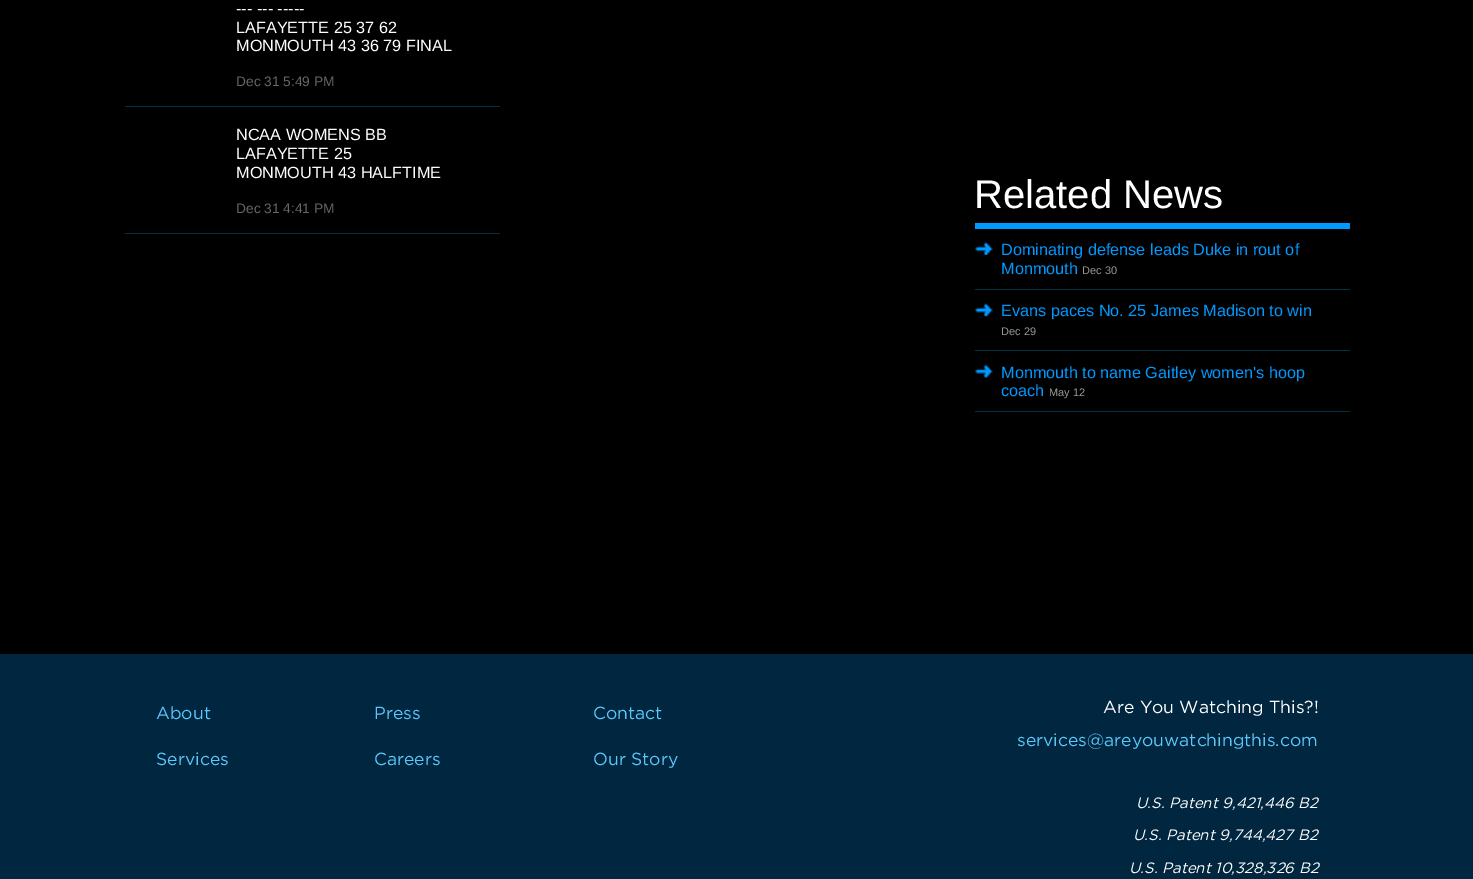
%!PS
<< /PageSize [1473 879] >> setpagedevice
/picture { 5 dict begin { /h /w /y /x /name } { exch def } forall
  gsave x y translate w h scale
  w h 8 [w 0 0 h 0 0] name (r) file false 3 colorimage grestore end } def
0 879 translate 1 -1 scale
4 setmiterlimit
0 setgray
0 0 1473 879 rectfill
0 0.192 0.278 setrgbcolor
125 106 375 1 rectfill
/LiberationSans-Regular [16.25 0 0 -16.25 0 0] selectfont
1 setgray
236 14 moveto (--- --- -----) show
236 33 moveto (LAFAYETTE 25 37 62) show
236 51 moveto (MONMOUTH 43 36 79 FINAL) show
/LiberationSans-Regular [13.75 0 0 -13.75 0 0] selectfont
0.4 setgray
236 86 moveto (Dec 31 5:49 PM) show
0 0.192 0.278 setrgbcolor
125 233 375 1 rectfill
/LiberationSans-Regular [16.25 0 0 -16.25 0 0] selectfont
1 setgray
236 140 moveto (NCAA WOMENS BB) show
236 159 moveto (LAFAYETTE 25) show
236 178 moveto (MONMOUTH 43 HALFTIME) show
/LiberationSans-Regular [13.75 0 0 -13.75 0 0] selectfont
0.4 setgray
236 213 moveto (Dec 31 4:41 PM) show
0 0.6 1 setrgbcolor
975 223 375 6 rectfill
/LiberationSans-Regular [40 0 0 -40 0 0] selectfont
1 setgray
974 208 moveto (Related News) show
(img1.rgb) 975 242 18 13 picture
0 0.192 0.278 setrgbcolor
975 289 375 1 rectfill
/LiberationSans-Regular [16.25 0 0 -16.25 0 0] selectfont
0 0.6 1 setrgbcolor
1001 255 moveto (Dominating defense leads Duke in rout of) show
1001 274 moveto (Monmouth) show
/LiberationSans-Regular [11 0 0 -11 0 0] selectfont
0.6 setgray
1082 274 moveto (Dec 30) show
(img2.rgb) 975 303 18 14 picture
0 0.192 0.278 setrgbcolor
975 350 375 1 rectfill
/LiberationSans-Regular [16.25 0 0 -16.25 0 0] selectfont
0 0.6 1 setrgbcolor
1001 316 moveto (Evans paces No. 25 James Madison to win) show
/LiberationSans-Regular [11 0 0 -11 0 0] selectfont
0.6 setgray
1001 335 moveto (Dec 29) show
(img3.rgb) 975 365 18 13 picture
0 0.192 0.278 setrgbcolor
975 411 375 1 rectfill
/LiberationSans-Regular [16.25 0 0 -16.25 0 0] selectfont
0 0.6 1 setrgbcolor
1001 378 moveto (Monmouth to name Gaitley women's hoop) show
1001 396 moveto (coach) show
/LiberationSans-Regular [11 0 0 -11 0 0] selectfont
0.6 setgray
1049 396 moveto (May 12) show
0 0.149 0.251 setrgbcolor
0 654 1473 225 rectfill
/Gotham-Regular [17.5 0 0 -17.5 0 0] selectfont
0.353 0.784 0.98 setrgbcolor
156 719 moveto (About) show
156 765 moveto (Services) show
374 719 moveto (Press) show
374 765 moveto (Careers) show
593 719 moveto (Contact) show
593 765 moveto (Our Story) show
1 setgray
1103 713 moveto (Are You Watching This?!) show
0.353 0.784 0.98 setrgbcolor
1017 746 moveto (services@areyouwatchingthis.com) show
/Gotham-Italic [15 0 0 -15 0 0] selectfont
1 setgray
1136 808 moveto (U.S. Patent 9,421,446 B2) show
1133 840 moveto (U.S. Patent 9,744,427 B2) show
1129 873 moveto (U.S. Patent 10,328,326 B2) show
showpage
